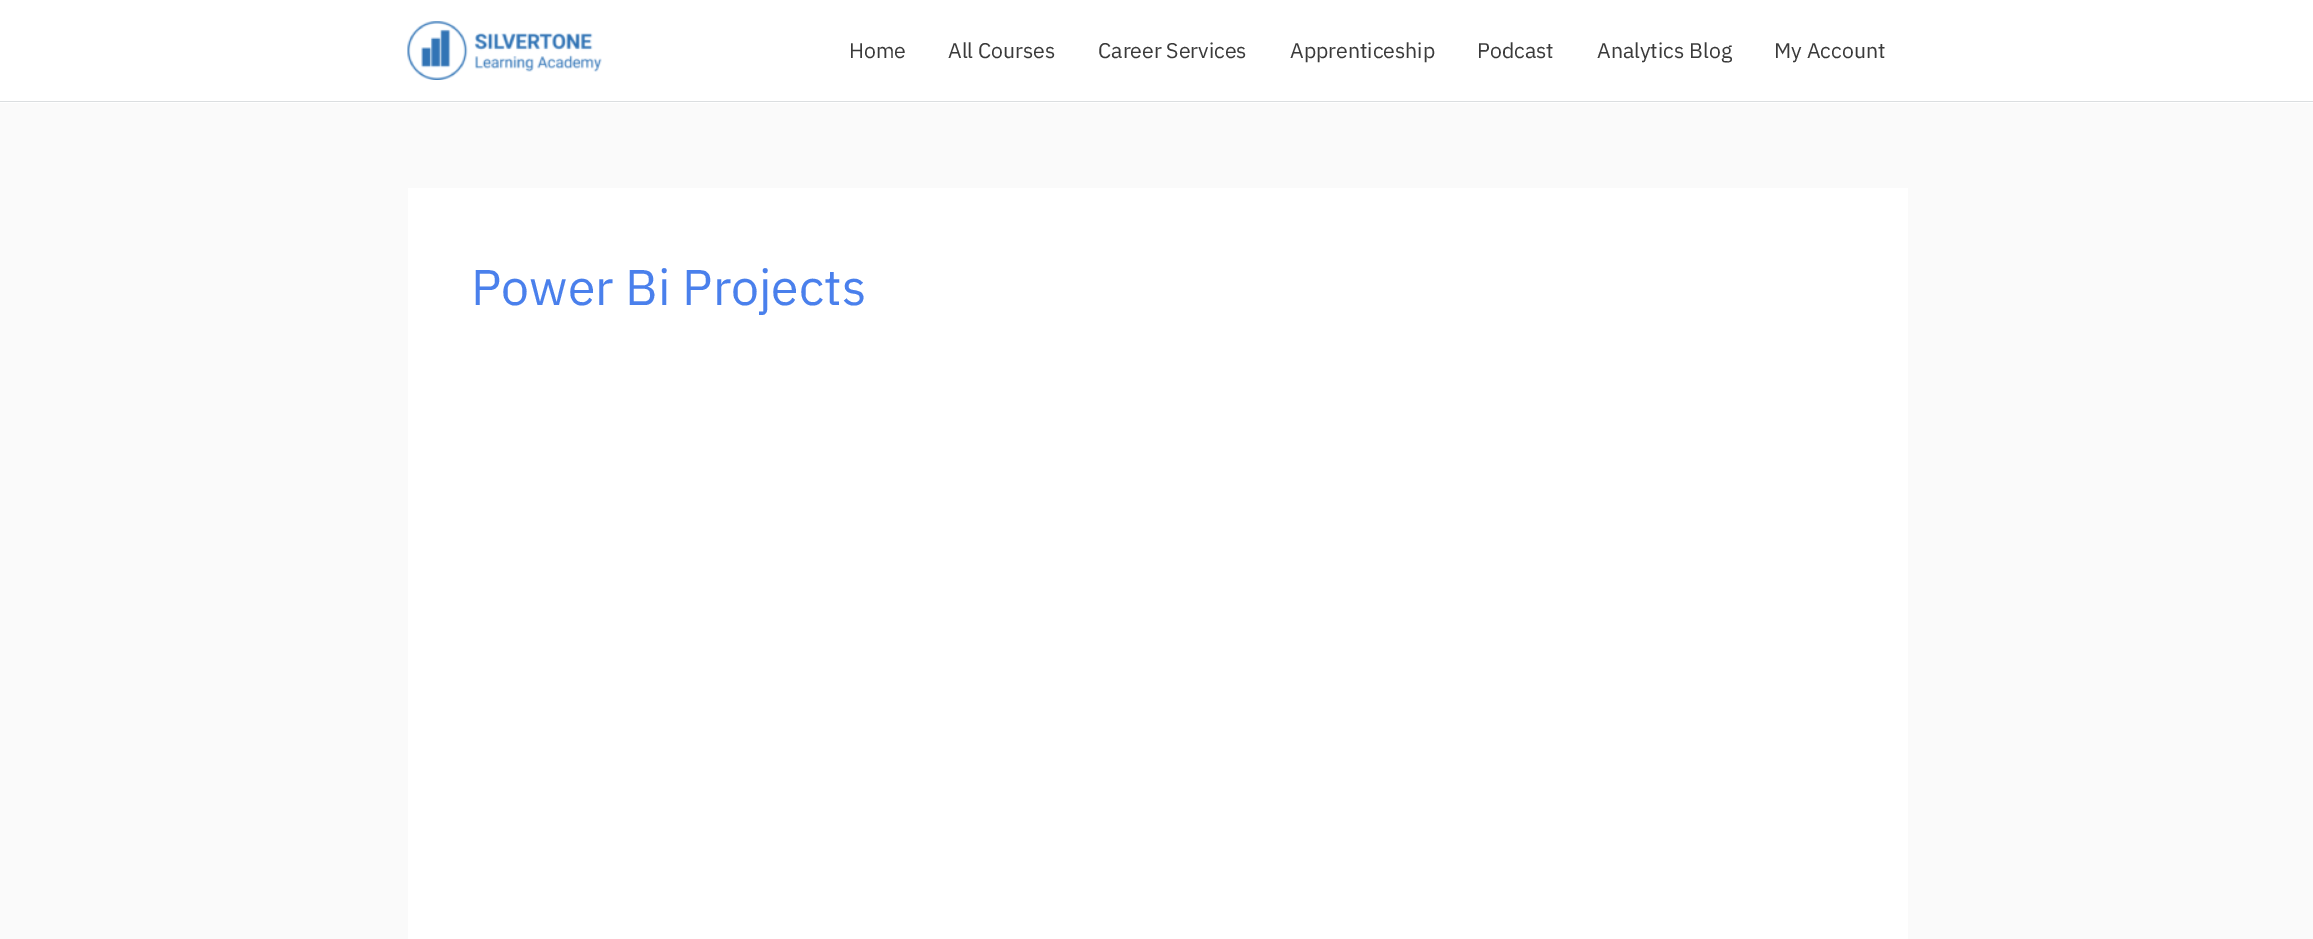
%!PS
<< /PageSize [2313 939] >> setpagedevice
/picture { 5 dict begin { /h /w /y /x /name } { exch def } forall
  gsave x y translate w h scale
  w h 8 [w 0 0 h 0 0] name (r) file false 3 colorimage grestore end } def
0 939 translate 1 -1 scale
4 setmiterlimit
0.98 setgray
0 0 2313 939 rectfill
1 setgray
0 0 2313 103 rectfill
0.859 0.871 0.878 setrgbcolor
0 101 2313 1 rectfill
(img1.rgb) 407 21 195 59 picture
/IBMPlexSans-Regular [21.25 0 0 -21.25 0 0] selectfont
0.227 setgray
849 58 moveto (Home) show
948 58 moveto (All Courses) show
1098 58 moveto (Career Services) show
1290 58 moveto (Apprenticeship) show
1477 58 moveto (Podcast) show
1597 58 moveto (Analytics Blog) show
1774 58 moveto (My Account) show
1 setgray
408 188 1500 751 rectfill
/IBMPlexSans-Regular [50 0 0 -50 0 0] selectfont
0.29 0.502 0.925 setrgbcolor
471 305 moveto (Power Bi Projects) show
showpage
